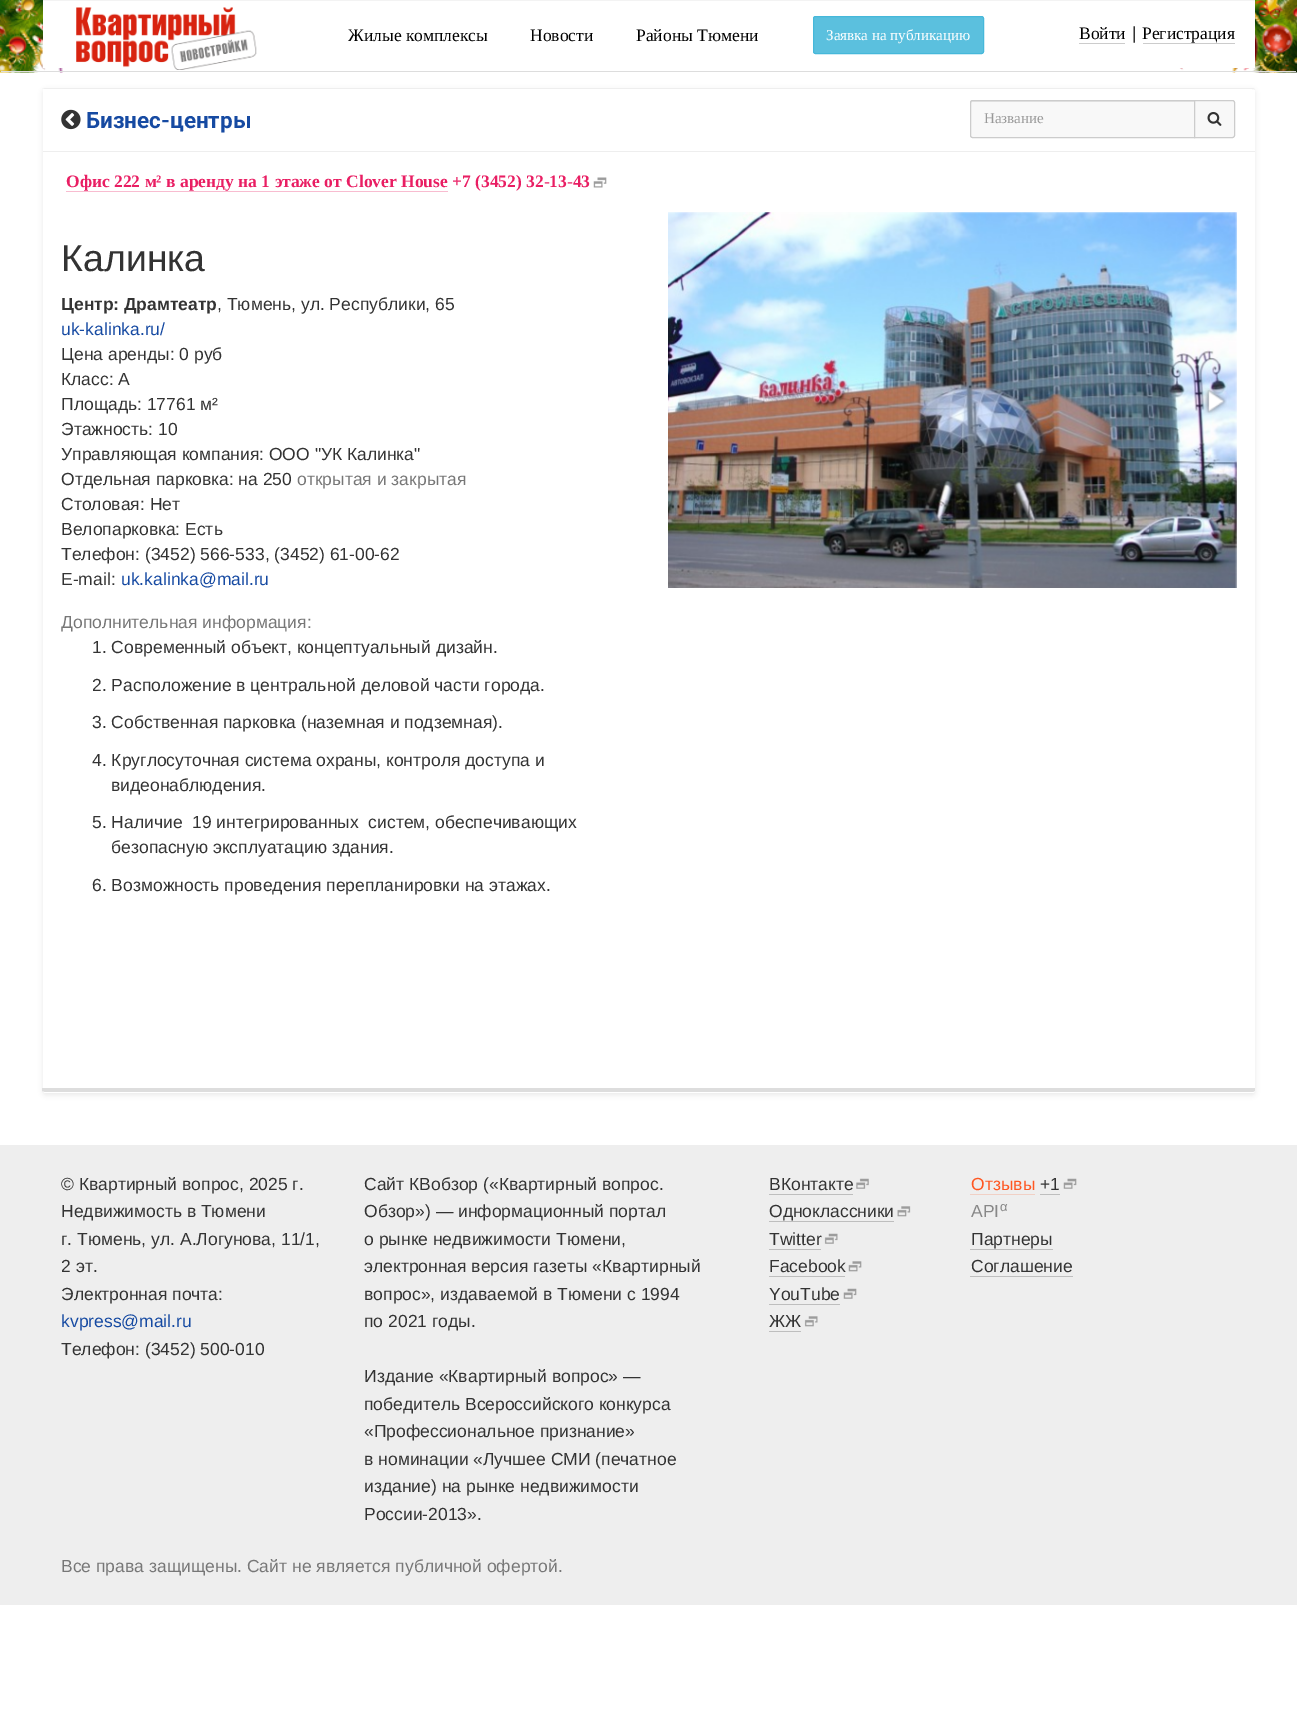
%!PS
<< /PageSize [1297 1721] /PageUsesTransparency true >> setpagedevice
/alpha { dup .setfillconstantalpha .setstrokeconstantalpha } def
/roundrect { 5 dict begin { /r /h /w /y /x } { exch def } forall
  x r add y moveto x w add y 2 copy h add r arct x w add y h add x 1 index r arct
  x y h add x y r arct x y 2 copy exch w add exch r arct closepath end } def
/shadow { 12 dict begin { /a /b /q /h /w /y /x } { exch def } forall gsave /was 0 def
  9 -2 -9 { dup b mul 4 div /e exch def 1 sub .425 mul 2.718 exch exp 1 add a .99 .min exch div /now exch def
    1 1 now sub 1 was sub div sub alpha /was now def
    w h .min e 2 mul add 0 gt { x e sub y e sub w e 2 mul add h e 2 mul add
      q e add b .6 mul add w h .min 2 div e add .min 0 .max roundrect fill } if } for grestore end } def
/picture { 5 dict begin { /h /w /y /x /name } { exch def } forall
  gsave x y translate w h scale
  w h 8 [w 0 0 h 0 0] name (r) file false 3 colorimage grestore end } def
0 .pushpdf14devicefilter
0 1721 translate 1 -1 scale
4 setmiterlimit
1 setgray
0 0 1297 1721 rectfill
(img1.rgb) 0 0 1297 73 picture
0.867 setgray
1 71 1295 1 rectfill
1 setgray
43 1 1212 67 rectfill
0.953 setgray
43 0 1212 1 rectfill
(img2.rgb) 76 7 181 63 picture
/LiberationSerif-Regular [17.5 0 0 -17.5 0 0] selectfont
0 setgray
348 41 moveto (Жилые комплексы) show
530 41 moveto (Новости) show
636 41 moveto (Районы Тюмени) show
0.357 0.753 0.871 setrgbcolor
813.5 16.5 170 37 2 roundrect gsave fill grestore
0.275 0.722 0.855 setrgbcolor
stroke
/LiberationSerif-Regular [15 0 0 -15 0 0] selectfont
1 setgray
826 40 moveto (Заявка на публикацию) show
/LiberationSerif-Regular [17.5 0 0 -17.5 0 0] selectfont
0 setgray
1079 39 moveto (Войти) show
0.8 setgray
1079 43 46 1 rectfill
/LiberationSans-Regular [17.5 0 0 -17.5 0 0] selectfont
0.2 setgray
1132 39 moveto (|) show
/LiberationSerif-Regular [17.5 0 0 -17.5 0 0] selectfont
0 setgray
1142 39 moveto (Регистрация) show
0.8 setgray
1143 43 92 1 rectfill
0 setgray
43 90 1212 1005 2.5 2.5 0.08 shadow
1 setgray
43 88 1212 1005 2.5 roundrect fill
0.933 setgray
newpath 45 88 moveto 1252 88 lineto 1254 88 1255 89 1255 90 curveto 1255 89 1253 89 1252 89 curveto 42 89 lineto closepath fill
0.867 setgray
newpath 1255 1090 moveto 1255 1088 lineto 42 1088 lineto 42 1091 lineto 45 1092 lineto 1252 1092 lineto 1254 1092 1255 1091 1255 1090 curveto closepath fill
0.933 setgray
43 151 1212 1 rectfill
(img3.rgb) 61 109 20 21 picture
/Roboto-Bold [22.5 0 0 -22.5 0 0] selectfont
0.086 0.29 0.635 setrgbcolor
86 128 moveto (Бизнес-центры) show
0.973 setgray
newpath 972.5 100 moveto 1195 100 lineto 1195 138 lineto 972.5 138 lineto 971 138 970 137 970 135.5 curveto 970 102.5 lineto 970 101 971 100 972.5 100 curveto closepath fill
0.898 setgray
newpath 972 102 moveto 1194 102 lineto 1194 101 lineto 972 101 lineto 971 101 971 102 971 103 curveto closepath fill
0.8 setgray
newpath 972.5 100.5 moveto 1194.5 100.5 lineto 1194.5 137.5 lineto 972.5 137.5 lineto 971.5 137.5 970.5 136.5 970.5 135.5 curveto 970.5 102.5 lineto 970.5 101.5 971.5 100.5 972.5 100.5 curveto closepath stroke
/LiberationSerif-Regular [15 0 0 -15 0 0] selectfont
0.6 setgray
984 123 moveto (Название) show
0.973 setgray
newpath 1194.5 100.5 moveto 1232.5 100.5 lineto 1233.5 100.5 1234.5 101.5 1234.5 102.5 curveto 1234.5 135.5 lineto 1234.5 136.5 1233.5 137.5 1232.5 137.5 curveto 1194.5 137.5 lineto closepath gsave fill grestore
0.8 setgray
stroke
(img4.rgb) 1207 112 15 14 picture
(img5.rgb) 593 177 14 11 picture
/LiberationSerif-Bold [17.5 0 0 -17.5 0 0] selectfont
0.914 0.118 0.388 setrgbcolor
66 187 moveto (Офис 222 м² в аренду на 1 этаже от Clover House +7 \(3452\) 32-13-43) show
0.973 0.737 0.816 setrgbcolor
66 191 382 1 rectfill
/LiberationSans-Regular [37.5 0 0 -37.5 0 0] selectfont
0.2 setgray
61 271 moveto (Калинка) show
/LiberationSans-Bold [17.5 0 0 -17.5 0 0] selectfont
61 310 moveto (Центр: Драмтеатр) show
/LiberationSans-Regular [17.5 0 0 -17.5 0 0] selectfont
217 310 moveto (, Тюмень, ул. Республики, 65) show
0.086 0.29 0.635 setrgbcolor
61 335 moveto (uk-kalinka.ru/) show
0.2 setgray
61 360 moveto (Цена аренды: 0 руб) show
61 385 moveto (Класс: A) show
61 410 moveto (Площадь: 17761 м²) show
61 435 moveto (Этажность: 10) show
61 460 moveto (Управляющая компания: ООО "УК Калинка") show
61 485 moveto (Отдельная парковка: на 250) show
0.467 setgray
297 485 moveto (открытая и закрытая) show
0.2 setgray
61 510 moveto (Столовая: Нет) show
61 535 moveto (Велопарковка: Есть) show
61 560 moveto (Телефон: \(3452\) 566-533, \(3452\) 61-00-62) show
61 585 moveto (E-mail:) show
0.086 0.29 0.635 setrgbcolor
121 585 moveto (uk.kalinka@mail.ru) show
0.467 setgray
61 628 moveto (Дополнительная информация:) show
0.2 setgray
92 653 moveto (1. Современный объект, концептуальный дизайн.) show
92 691 moveto (2. Расположение в центральной деловой части города.) show
92 728 moveto (3. Собственная парковка \(наземная и подземная\).) show
92 766 moveto (4. Круглосуточная система охраны, контроля доступа и) show
111 791 moveto (видеонаблюдения.) show
92 828 moveto (5. Наличие  19 интегрированных  систем, обеспечивающих) show
111 853 moveto (безопасную эксплуатацию здания.) show
92 891 moveto (6. Возможность проведения перепланировки на этажах.) show
(img6.rgb) 668 212 569 376 picture
(img7.rgb) 679 391 18 20 picture
(img8.rgb) 1203 388 24 27 picture
0.933 setgray
0 1145 1297 460 rectfill
0.2 setgray
61 1190 moveto (© Квартирный вопрос, 2025 г.) show
61 1217 moveto (Недвижимость в Тюмени) show
61 1245 moveto (г. Тюмень, ул. А.Логунова, 11/1,) show
61 1272 moveto (2 эт.) show
61 1300 moveto (Электронная почта:) show
0.086 0.29 0.635 setrgbcolor
61 1327 moveto (kvpress@mail.ru) show
0.2 setgray
61 1355 moveto (Телефон: \(3452\) 500-010) show
364 1190 moveto (Сайт КВобзор \(«Квартирный вопрос.) show
364 1217 moveto (Обзор»\) — информационный портал) show
364 1245 moveto (о рынке недвижимости Тюмени,) show
364 1272 moveto (электронная версия газеты «Квартирный) show
364 1300 moveto (вопрос», издаваемой в Тюмени с 1994) show
364 1327 moveto (по 2021 годы.) show
364 1382 moveto (Издание «Квартирный вопрос» —) show
364 1410 moveto (победитель Всероссийского конкурса) show
364 1437 moveto («Профессиональное признание») show
364 1465 moveto (в номинации «Лучшее СМИ \(печатное) show
364 1492 moveto (издание\) на рынке недвижимости) show
364 1520 moveto (России-2013».) show
769 1190 moveto (ВКонтакте) show
0.745 setgray
769 1194 84 1 rectfill
(img9.rgb) 856 1178 13 11 picture
0.2 setgray
769 1217 moveto (Одноклассники) show
0.745 setgray
769 1221 125 1 rectfill
(img10.rgb) 897 1206 14 11 picture
0.2 setgray
769 1245 moveto (Twitter) show
0.745 setgray
769 1249 52 1 rectfill
(img11.rgb) 824 1233 14 11 picture
0.2 setgray
769 1272 moveto (Facebook) show
0.745 setgray
769 1276 76 1 rectfill
(img12.rgb) 848 1261 14 11 picture
0.2 setgray
769 1300 moveto (YouTube) show
0.745 setgray
769 1304 71 1 rectfill
(img13.rgb) 843 1288 14 11 picture
0.2 setgray
769 1327 moveto (ЖЖ) show
0.745 setgray
769 1331 32 1 rectfill
(img14.rgb) 804 1316 14 11 picture
1 0.341 0.133 setrgbcolor
971 1190 moveto (Отзывы) show
0.945 0.816 0.773 setrgbcolor
970 1194 65 1 rectfill
0.2 setgray
1040 1190 moveto (+1) show
0.745 setgray
1040 1194 20 1 rectfill
(img15.rgb) 1063 1178 14 11 picture
0.533 setgray
971 1217 moveto (API) show
/LiberationSans-Regular [13 0 0 -13 0 0] selectfont
1000 1211 moveto (α) show
/LiberationSans-Regular [17.5 0 0 -17.5 0 0] selectfont
0.2 setgray
971 1245 moveto (Партнеры) show
0.745 setgray
970 1249 83 1 rectfill
0.2 setgray
971 1272 moveto (Соглашение) show
0.745 setgray
970 1276 103 1 rectfill
0.467 setgray
61 1572 moveto (Все права защищены. Сайт не является публичной офертой.) show
.poppdf14devicefilter showpage
